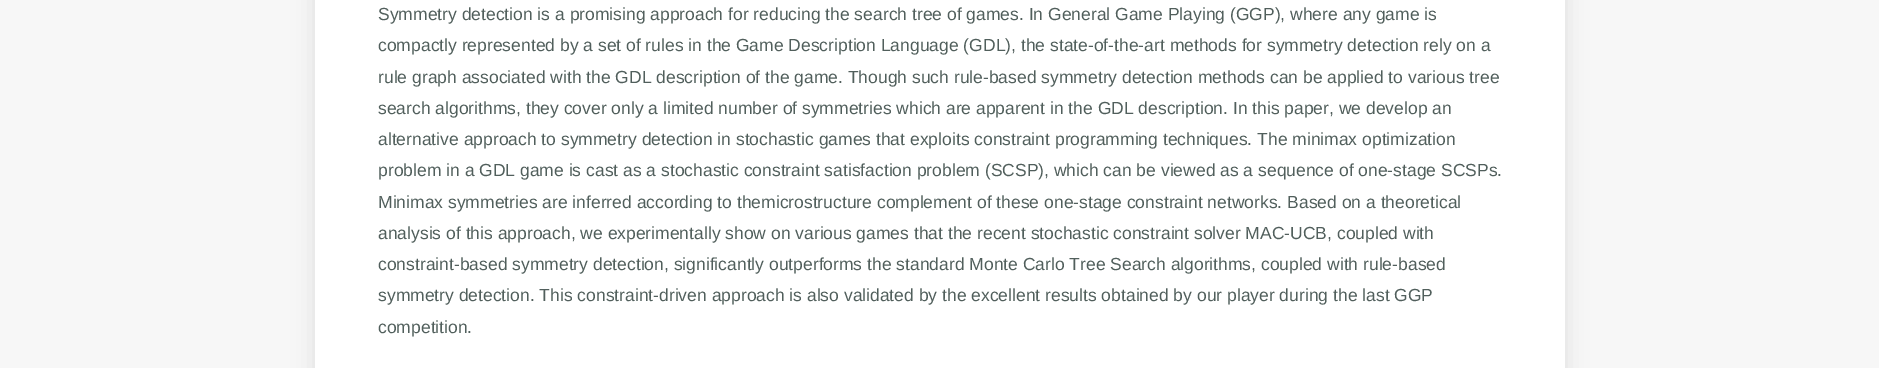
%!PS
<< /PageSize [1879 368] /PageUsesTransparency true >> setpagedevice
/alpha { dup .setfillconstantalpha .setstrokeconstantalpha } def
/roundrect { 5 dict begin { /r /h /w /y /x } { exch def } forall
  x r add y moveto x w add y 2 copy h add r arct x w add y h add x 1 index r arct
  x y h add x y r arct x y 2 copy exch w add exch r arct closepath end } def
/shadow { 12 dict begin { /a /b /q /h /w /y /x } { exch def } forall gsave /was 0 def
  9 -2 -9 { dup b mul 4 div /e exch def 1 sub .425 mul 2.718 exch exp 1 add a .99 .min exch div /now exch def
    1 1 now sub 1 was sub div sub alpha /was now def
    w h .min e 2 mul add 0 gt { x e sub y e sub w e 2 mul add h e 2 mul add
      q e add b .6 mul add w h .min 2 div e add .min 0 .max roundrect fill } if } for grestore end } def
0 .pushpdf14devicefilter
0 368 translate 1 -1 scale
4 setmiterlimit
0.969 setgray
0 0 1879 368 rectfill
0.867 setgray
315 -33 1250 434 0 11 1 shadow
1 setgray
315 0 1250 368 rectfill
/LiberationSans-Regular [17.5 0 0 -17.5 0 0] selectfont
0.318 0.373 0.361 setrgbcolor
378 20 moveto (Symmetry detection is a promising approach for reducing the search tree of games. In General Game Playing \(GGP\), where any game is) show
378 51 moveto (compactly represented by a set of rules in the Game Description Language \(GDL\), the state-of-the-art methods for symmetry detection rely on a) show
378 83 moveto (rule graph associated with the GDL description of the game. Though such rule-based symmetry detection methods can be applied to various tree) show
378 114 moveto (search algorithms, they cover only a limited number of symmetries which are apparent in the GDL description. In this paper, we develop an) show
378 145 moveto (alternative approach to symmetry detection in stochastic games that exploits constraint programming techniques. The minimax optimization) show
378 176 moveto (problem in a GDL game is cast as a stochastic constraint satisfaction problem \(SCSP\), which can be viewed as a sequence of one-stage SCSPs.) show
378 208 moveto (Minimax symmetries are inferred according to themicrostructure complement of these one-stage constraint networks. Based on a theoretical) show
378 239 moveto (analysis of this approach, we experimentally show on various games that the recent stochastic constraint solver MAC-UCB, coupled with) show
378 270 moveto (constraint-based symmetry detection, significantly outperforms the standard Monte Carlo Tree Search algorithms, coupled with rule-based) show
378 301 moveto (symmetry detection. This constraint-driven approach is also validated by the excellent results obtained by our player during the last GGP) show
378 333 moveto (competition.) show
.poppdf14devicefilter showpage
